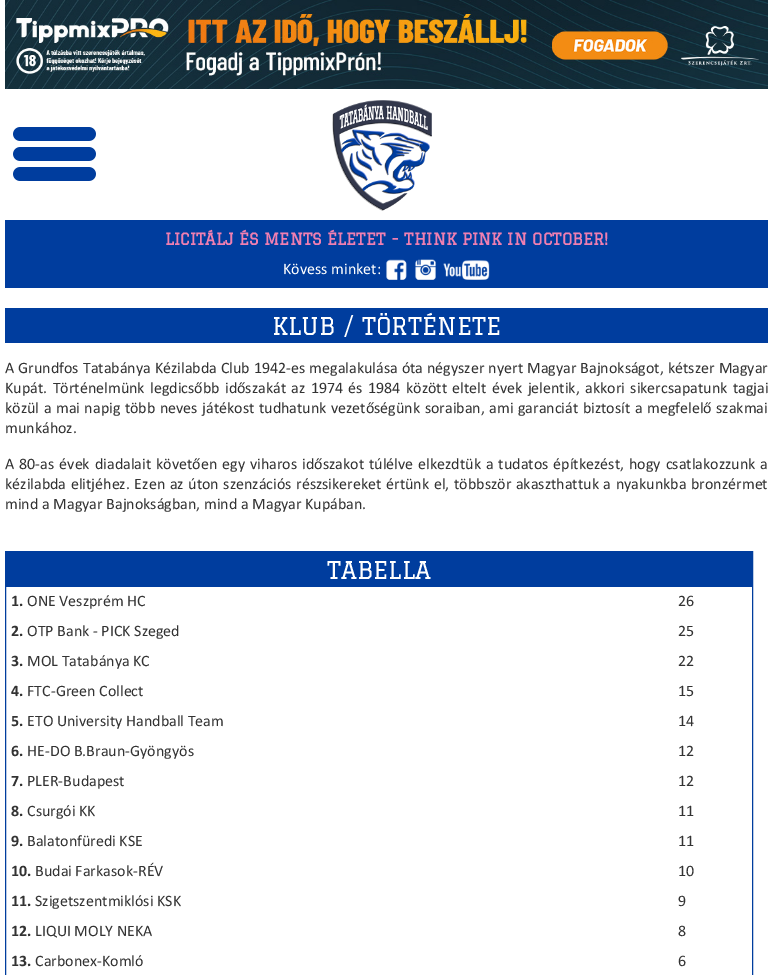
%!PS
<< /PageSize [773 975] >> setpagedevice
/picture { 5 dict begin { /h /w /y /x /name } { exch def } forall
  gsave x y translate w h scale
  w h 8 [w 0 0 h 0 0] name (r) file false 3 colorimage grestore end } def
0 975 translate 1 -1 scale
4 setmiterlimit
1 setgray
0 0 773 975 rectfill
(img1.rgb) 5 0 763 89 picture
(img2.rgb) 13 127 83 54 picture
(img3.rgb) 332 100 100 111 picture
0 0.239 0.62 setrgbcolor
5 220 763 68 rectfill
/Graduate-Bold [16 0 0 -16 0 0] selectfont
0.937 0.498 0.694 setrgbcolor
165 245 moveto (LICITÁLJ ÉS MENTS ÉLETET - THINK PINK IN OCTOBER!) show
/Calibri-Regular [16 0 0 -16 0 0] selectfont
1 setgray
283 274 moveto (Kövess minket:) show
(img4.rgb) 386 259 21 21 picture
(img5.rgb) 415 259 21 21 picture
(img6.rgb) 443 260 47 20 picture
0 0.239 0.62 setrgbcolor
5 308 763 35 rectfill
/Graduate-Regular [24 0 0 -24 0 0] selectfont
1 setgray
272 335 moveto (KLUB / TÖRTÉNETE) show
/Calibri-Regular [16 0 0 -16 0 0] selectfont
0.2 setgray
5 373 moveto 0.4 0 32 (A Grundfos Tatabánya Kézilabda Club 1942-es megalakulása óta négyszer nyert Magyar Bajnokságot, kétszer Magyar) widthshow
5 393 moveto 1.75 0 32 (Kupát. Történelmünk legdicsőbb időszakát az 1974 és 1984 között eltelt évek jelentik, akkori sikercsapatunk tagjai) widthshow
5 413 moveto 0.9 0 32 (közül a mai napig több neves játékost tudhatunk vezetőségünk soraiban, ami garanciát biztosít a megfelelő szakmai) widthshow
5 433 moveto (munkához.) show
5 469 moveto 1.4 0 32 (A 80-as évek diadalait követően egy viharos időszakot túlélve elkezdtük a tudatos építkezést, hogy csatlakozzunk a) widthshow
5 489 moveto 1 0 32 (kézilabda elitjéhez. Ezen az úton szenzációs részsikereket értünk el, többször akaszthattuk a nyakunkba bronzérmet) widthshow
5 509 moveto (mind a Magyar Bajnokságban, mind a Magyar Kupában.) show
0 0.239 0.62 setrgbcolor
5.5 551.5 747 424 rectstroke
6 552 746 35 rectfill
/Graduate-Regular [24 0 0 -24 0 0] selectfont
1 setgray
327 579 moveto (TABELLA) show
/Calibri-Bold [16 0 0 -16 0 0] selectfont
0.2 setgray
11 606 moveto (1.) show
/Calibri-Regular [16 0 0 -16 0 0] selectfont
27 606 moveto (ONE Veszprém HC) show
678 606 moveto (26) show
/Calibri-Bold [16 0 0 -16 0 0] selectfont
11 636 moveto (2.) show
/Calibri-Regular [16 0 0 -16 0 0] selectfont
27 636 moveto (OTP Bank - PICK Szeged) show
678 636 moveto (25) show
/Calibri-Bold [16 0 0 -16 0 0] selectfont
11 666 moveto (3.) show
/Calibri-Regular [16 0 0 -16 0 0] selectfont
27 666 moveto (MOL Tatabánya KC) show
678 666 moveto (22) show
/Calibri-Bold [16 0 0 -16 0 0] selectfont
11 696 moveto (4.) show
/Calibri-Regular [16 0 0 -16 0 0] selectfont
27 696 moveto (FTC-Green Collect) show
678 696 moveto (15) show
/Calibri-Bold [16 0 0 -16 0 0] selectfont
11 726 moveto (5.) show
/Calibri-Regular [16 0 0 -16 0 0] selectfont
27 726 moveto (ETO University Handball Team) show
678 726 moveto (14) show
/Calibri-Bold [16 0 0 -16 0 0] selectfont
11 756 moveto (6.) show
/Calibri-Regular [16 0 0 -16 0 0] selectfont
27 756 moveto (HE-DO B.Braun-Gyöngyös) show
678 756 moveto (12) show
/Calibri-Bold [16 0 0 -16 0 0] selectfont
11 786 moveto (7.) show
/Calibri-Regular [16 0 0 -16 0 0] selectfont
27 786 moveto (PLER-Budapest) show
678 786 moveto (12) show
/Calibri-Bold [16 0 0 -16 0 0] selectfont
11 816 moveto (8.) show
/Calibri-Regular [16 0 0 -16 0 0] selectfont
27 816 moveto (Csurgói KK) show
678 816 moveto (11) show
/Calibri-Bold [16 0 0 -16 0 0] selectfont
11 846 moveto (9.) show
/Calibri-Regular [16 0 0 -16 0 0] selectfont
27 846 moveto (Balatonfüredi KSE) show
678 846 moveto (11) show
/Calibri-Bold [16 0 0 -16 0 0] selectfont
11 876 moveto (10.) show
/Calibri-Regular [16 0 0 -16 0 0] selectfont
35 876 moveto (Budai Farkasok-RÉV) show
678 876 moveto (10) show
/Calibri-Bold [16 0 0 -16 0 0] selectfont
11 906 moveto (11.) show
/Calibri-Regular [16 0 0 -16 0 0] selectfont
35 906 moveto (Szigetszentmiklósi KSK) show
678 906 moveto (9) show
/Calibri-Bold [16 0 0 -16 0 0] selectfont
11 936 moveto (12.) show
/Calibri-Regular [16 0 0 -16 0 0] selectfont
35 936 moveto (LIQUI MOLY NEKA) show
678 936 moveto (8) show
/Calibri-Bold [16 0 0 -16 0 0] selectfont
11 966 moveto (13.) show
/Calibri-Regular [16 0 0 -16 0 0] selectfont
35 966 moveto (Carbonex-Komló) show
678 966 moveto (6) show
showpage
